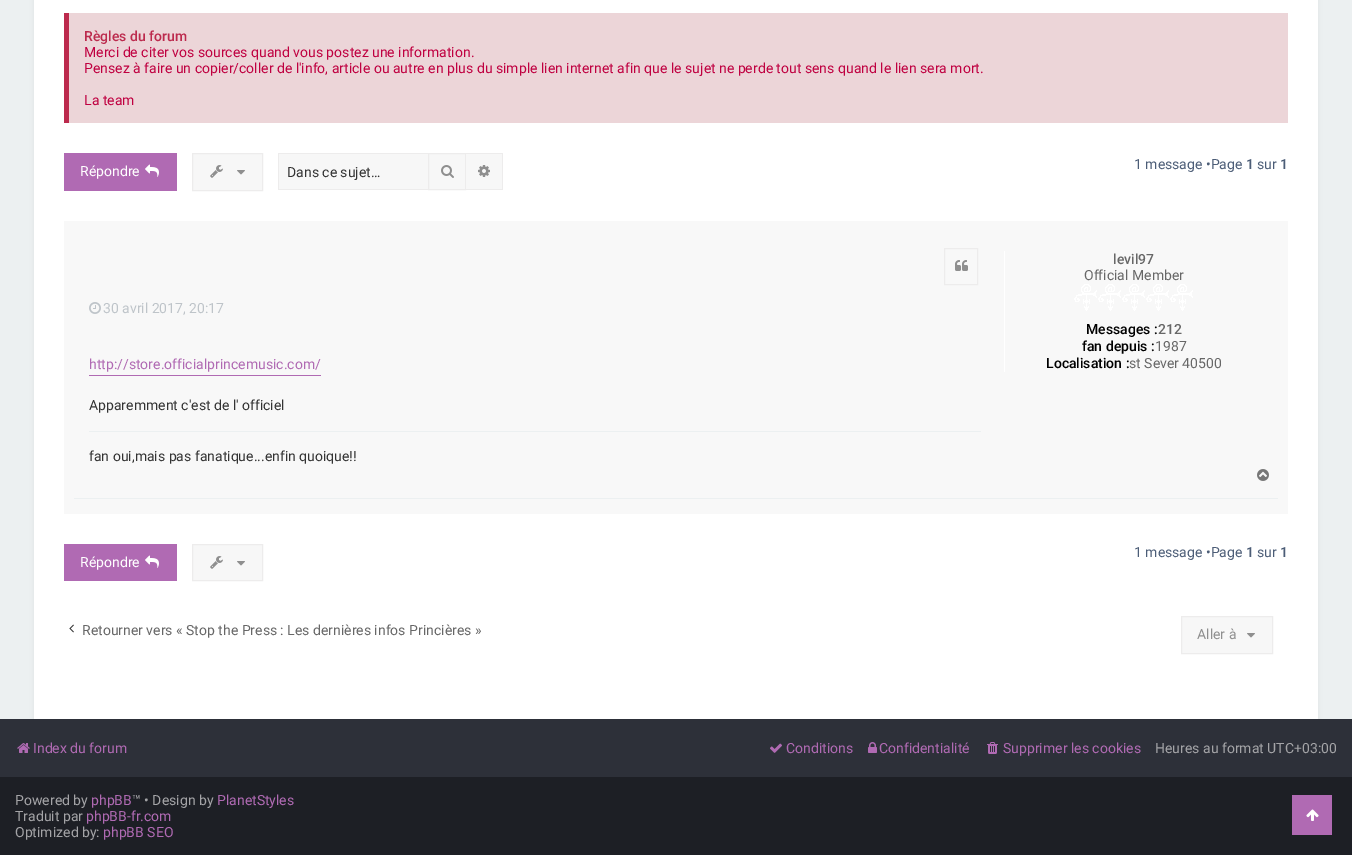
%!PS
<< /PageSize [1352 855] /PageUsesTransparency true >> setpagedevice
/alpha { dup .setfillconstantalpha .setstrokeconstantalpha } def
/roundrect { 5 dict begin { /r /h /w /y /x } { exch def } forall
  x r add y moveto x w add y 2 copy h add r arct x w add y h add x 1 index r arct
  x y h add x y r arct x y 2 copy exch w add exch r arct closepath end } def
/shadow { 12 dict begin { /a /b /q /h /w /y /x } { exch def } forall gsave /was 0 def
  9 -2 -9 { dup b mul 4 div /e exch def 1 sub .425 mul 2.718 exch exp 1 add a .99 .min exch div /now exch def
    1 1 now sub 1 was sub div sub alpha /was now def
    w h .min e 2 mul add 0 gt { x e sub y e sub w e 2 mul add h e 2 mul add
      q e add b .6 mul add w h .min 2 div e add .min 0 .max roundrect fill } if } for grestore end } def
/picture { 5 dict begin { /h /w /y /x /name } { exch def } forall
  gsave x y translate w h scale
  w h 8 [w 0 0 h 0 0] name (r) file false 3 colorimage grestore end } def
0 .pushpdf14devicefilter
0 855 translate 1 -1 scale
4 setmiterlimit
0.925 0.941 0.945 setrgbcolor
0 0 1352 855 rectfill
0.176 0.188 0.224 setrgbcolor
0 719 1352 58 rectfill
0 setgray
34 -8 1284 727 0 2.5 0.05 shadow
1 setgray
34 0 1284 719 rectfill
0.925 0.835 0.847 setrgbcolor
69 13 1219 110 rectfill
0.737 0.165 0.302 setrgbcolor
64 13 5 110 rectfill
/Roboto-Medium [14 0 0 -14 0 0] selectfont
84 41 moveto (Règles du forum) show
/Roboto-Regular [14 0 0 -14 0 0] selectfont
0.749 0 0.251 setrgbcolor
84 57 moveto (Merci de citer vos sources quand vous postez une information.) show
84 73 moveto (Pensez à faire un copier/coller de l'info, article ou autre en plus du simple lien internet afin que le sujet ne perde tout sens quand le lien sera mort.) show
84 105 moveto (La team) show
0.69 0.416 0.702 setrgbcolor
64 153 113 38 rectfill
1 setgray
80 176 moveto (Répondre) show
(img1.rgb) 145 164 14 13 picture
0.969 setgray
newpath 192.5 153.5 moveto 262.5 153.5 lineto 262.5 190.5 lineto 192.5 190.5 lineto closepath gsave fill grestore
0.929 0.925 0.925 setrgbcolor
stroke
(img2.rgb) 210 165 13 13 picture
(img3.rgb) 237 170 8 5 picture
0.969 setgray
279 154 149 35 rectfill
0.929 0.925 0.925 setrgbcolor
278 153 150 1 rectfill
278 189 150 1 rectfill
278 153 1 37 rectfill
0.2 setgray
287 177 moveto (Dans ce sujet…) show
0.969 setgray
newpath 428.5 153.5 moveto 465.5 153.5 lineto 465.5 189.5 lineto 428.5 189.5 lineto closepath gsave fill grestore
0.929 0.925 0.925 setrgbcolor
stroke
(img4.rgb) 441 165 13 13 picture
0.969 setgray
466 154 36 35 rectfill
0.929 0.925 0.925 setrgbcolor
466 153 37 1 rectfill
502 153 1 37 rectfill
466 189 37 1 rectfill
(img5.rgb) 478 165 12 12 picture
0.298 0.365 0.467 setrgbcolor
1134 169 moveto (1 message •Page) show
/Roboto-Medium [14 0 0 -14 0 0] selectfont
1246 169 moveto (1) show
/Roboto-Regular [14 0 0 -14 0 0] selectfont
1257 169 moveto (sur) show
/Roboto-Medium [14 0 0 -14 0 0] selectfont
1280 169 moveto (1) show
0.973 setgray
64 221 1224 293 rectfill
0.925 0.941 0.945 setrgbcolor
74 498 1204 1 rectfill
0.929 0.925 0.925 setrgbcolor
944.5 248.5 33 36 rectstroke
(img6.rgb) 955 260 13 11 picture
(img7.rgb) 89 302 12 12 picture
/Roboto-Regular [14 0 0 -14 0 0] selectfont
0.745 0.769 0.788 setrgbcolor
103 313 moveto (30 avril 2017, 20:17) show
0.69 0.416 0.702 setrgbcolor
89 375 232 1 rectfill
89 369 moveto (http://store.officialprincemusic.com/) show
0.2 setgray
89 410 moveto (Apparemment c'est de l' officiel) show
0.925 0.941 0.945 setrgbcolor
89 431 892 1 rectfill
0.2 setgray
89 461 moveto (fan oui,mais pas fanatique...enfin quoique!!) show
1 setgray
1004 251 1 121 rectfill
/Roboto-Medium [14 0 0 -14 0 0] selectfont
0.404 setgray
1113 264 moveto (levil97) show
/Roboto-Regular [14 0 0 -14 0 0] selectfont
1084 280 moveto (Official Member) show
(img8.rgb) 1074 284 119 27 picture
/Roboto-Medium [14 0 0 -14 0 0] selectfont
0 setgray
1086 334 moveto (Messages :) show
0.404 setgray
1158 334 moveto (212) show
0 setgray
1082 351 moveto (fan depuis :) show
/Roboto-Regular [14 0 0 -14 0 0] selectfont
0.404 setgray
1155 351 moveto (1987) show
/Roboto-Medium [14 0 0 -14 0 0] selectfont
0 setgray
1046 368 moveto (Localisation :) show
/Roboto-Regular [14 0 0 -14 0 0] selectfont
0.404 setgray
1129 368 moveto (st Sever 40500) show
(img9.rgb) 1257 469 12 12 picture
0.969 setgray
newpath 192.5 544.5 moveto 262.5 544.5 lineto 262.5 580.5 lineto 192.5 580.5 lineto closepath gsave fill grestore
0.929 0.925 0.925 setrgbcolor
stroke
(img2.rgb) 210 556 13 13 picture
(img3.rgb) 237 561 8 5 picture
0.298 0.365 0.467 setrgbcolor
1134 557 moveto (1 message •Page) show
/Roboto-Medium [14 0 0 -14 0 0] selectfont
1246 557 moveto (1) show
/Roboto-Regular [14 0 0 -14 0 0] selectfont
1257 557 moveto (sur) show
/Roboto-Medium [14 0 0 -14 0 0] selectfont
1280 557 moveto (1) show
0.69 0.416 0.702 setrgbcolor
64 544 113 37 rectfill
/Roboto-Regular [14 0 0 -14 0 0] selectfont
1 setgray
80 567 moveto (Répondre) show
(img1.rgb) 145 555 14 13 picture
(img10.rgb) 69 624 5 9 picture
0.404 setgray
82 635 moveto (Retourner vers « Stop the Press : Les dernières infos Princières ») show
0.969 setgray
newpath 1181.5 616.5 moveto 1272.5 616.5 lineto 1272.5 653.5 lineto 1181.5 653.5 lineto closepath gsave fill grestore
0.929 0.925 0.925 setrgbcolor
stroke
0.561 setgray
1197 639 moveto (Aller à) show
(img3.rgb) 1247 633 8 5 picture
(img11.rgb) 17 743 13 10 picture
0.69 0.416 0.702 setrgbcolor
33 753 moveto (Index du forum) show
(img12.rgb) 770 743 12 10 picture
786 753 moveto (Conditions) show
(img13.rgb) 868 742 9 11 picture
879 753 moveto (Confidentialité) show
(img14.rgb) 987 742 11 12 picture
1003 753 moveto (Supprimer les cookies) show
0.643 0.643 0.655 setrgbcolor
1155 753 moveto (Heures au format UTC+03:00) show
0.114 0.122 0.145 setrgbcolor
0 777 1352 78 rectfill
0.643 0.643 0.655 setrgbcolor
15 805 moveto (Powered by) show
0.69 0.416 0.702 setrgbcolor
91 805 moveto (phpBB) show
0.643 0.643 0.655 setrgbcolor
132 805 moveto (™ • Design by) show
0.69 0.416 0.702 setrgbcolor
217 805 moveto (PlanetStyles) show
0.643 0.643 0.655 setrgbcolor
15 821 moveto (Traduit par) show
0.69 0.416 0.702 setrgbcolor
86 821 moveto (phpBB-fr.com) show
0.643 0.643 0.655 setrgbcolor
15 837 moveto (Optimized by:) show
0.69 0.416 0.702 setrgbcolor
103 837 moveto (phpBB SEO) show
1292 795 40 40 rectfill
(img15.rgb) 1306 809 13 12 picture
.poppdf14devicefilter showpage
